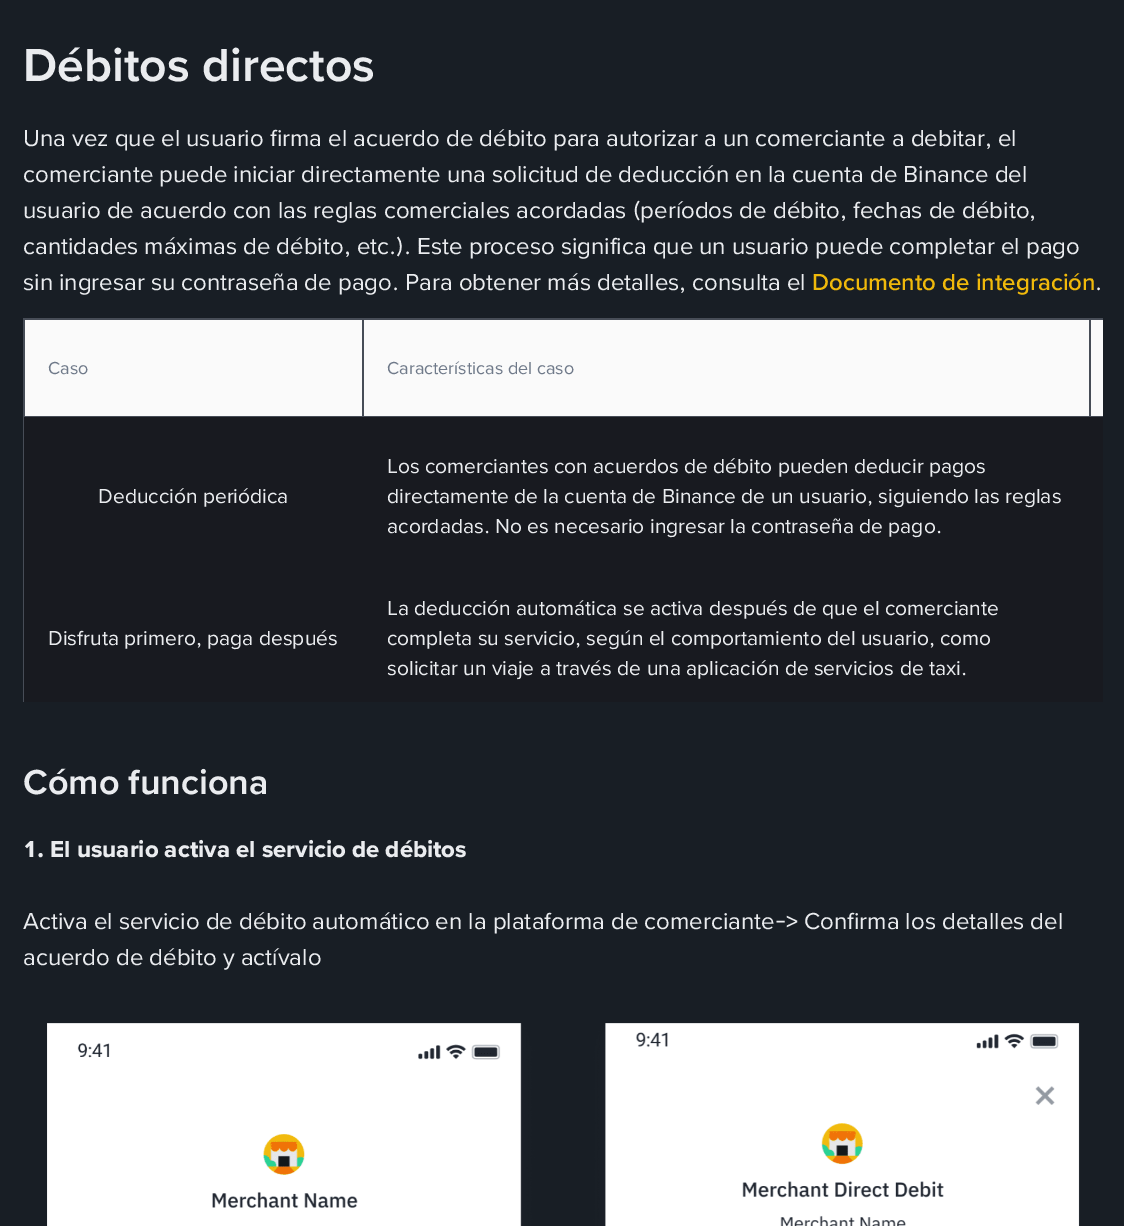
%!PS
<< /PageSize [1124 1226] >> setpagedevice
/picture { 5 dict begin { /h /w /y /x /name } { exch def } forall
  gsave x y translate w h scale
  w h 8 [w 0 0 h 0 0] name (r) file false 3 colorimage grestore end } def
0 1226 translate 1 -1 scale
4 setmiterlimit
0.094 0.118 0.145 setrgbcolor
0 0 1124 1226 rectfill
/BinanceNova-SemiBold [48 0 0 -48 0 0] selectfont
0.918 0.925 0.937 setrgbcolor
23 81 moveto (Débitos directos) show
/BinanceNova-Regular [24 0 0 -24 0 0] selectfont
23 146 moveto (Una vez que el usuario firma el acuerdo de débito para autorizar a un comerciante a debitar, el) show
23 182 moveto (comerciante puede iniciar directamente una solicitud de deducción en la cuenta de Binance del) show
23 218 moveto (usuario de acuerdo con las reglas comerciales acordadas \(períodos de débito, fechas de débito,) show
23 254 moveto (cantidades máximas de débito, etc.\). Este proceso significa que un usuario puede completar el pago) show
23 290 moveto (sin ingresar su contraseña de pago. Para obtener más detalles, consulta el) show
/BinanceNova-Medium [24 0 0 -24 0 0] selectfont
0.941 0.725 0.043 setrgbcolor
812 290 moveto (Documento de integración) show
/BinanceNova-Regular [24 0 0 -24 0 0] selectfont
0.918 0.925 0.937 setrgbcolor
1095 290 moveto (.) show
0.278 0.302 0.341 setrgbcolor
23 318 1080 2 rectfill
23 416 1 286 rectfill
23 318 2 99 rectfill
0.98 setgray
25 320 337 96 rectfill
0.278 0.302 0.341 setrgbcolor
1089 416 14 1 rectfill
1089 318 2 99 rectfill
362 416 729 1 rectfill
362 318 2 99 rectfill
23 416 340 2 rectfill
/BinanceNova-Regular [18 0 0 -18 0 0] selectfont
0.439 0.478 0.541 setrgbcolor
48 374 moveto (Caso) show
0.98 setgray
364 320 725 96 rectfill
0.439 0.478 0.541 setrgbcolor
387 374 moveto (Características del caso) show
0.98 setgray
1091 320 12 96 rectfill
0.094 0.102 0.125 setrgbcolor
24 417 1079 158 rectfill
/BinanceNova-Regular [21 0 0 -21 0 0] selectfont
0.918 0.925 0.937 setrgbcolor
98 503 moveto (Deducción periódica) show
387 473 moveto (Los comerciantes con acuerdos de débito pueden deducir pagos) show
387 503 moveto (directamente de la cuenta de Binance de un usuario, siguiendo las reglas) show
387 533 moveto (acordadas. No es necesario ingresar la contraseña de pago.) show
0.094 0.102 0.125 setrgbcolor
24 575 1079 127 rectfill
0.918 0.925 0.937 setrgbcolor
48 645 moveto (Disfruta primero, paga después) show
387 615 moveto (La deducción automática se activa después de que el comerciante) show
387 645 moveto (completa su servicio, según el comportamiento del usuario, como) show
387 675 moveto (solicitar un viaje a través de una aplicación de servicios de taxi.) show
/BinanceNova-SemiBold [36 0 0 -36 0 0] selectfont
23 794 moveto (Cómo funciona) show
/BinanceNova-Bold [24 0 0 -24 0 0] selectfont
23 857 moveto (1. El usuario activa el servicio de débitos) show
/BinanceNova-Regular [24 0 0 -24 0 0] selectfont
23 929 moveto (Activa el servicio de débito automático en la plataforma de comerciante-> Confirma los detalles del) show
23 965 moveto (acuerdo de débito y actívalo) show
(img1.rgb) 47 1023 1033 203 picture
showpage
